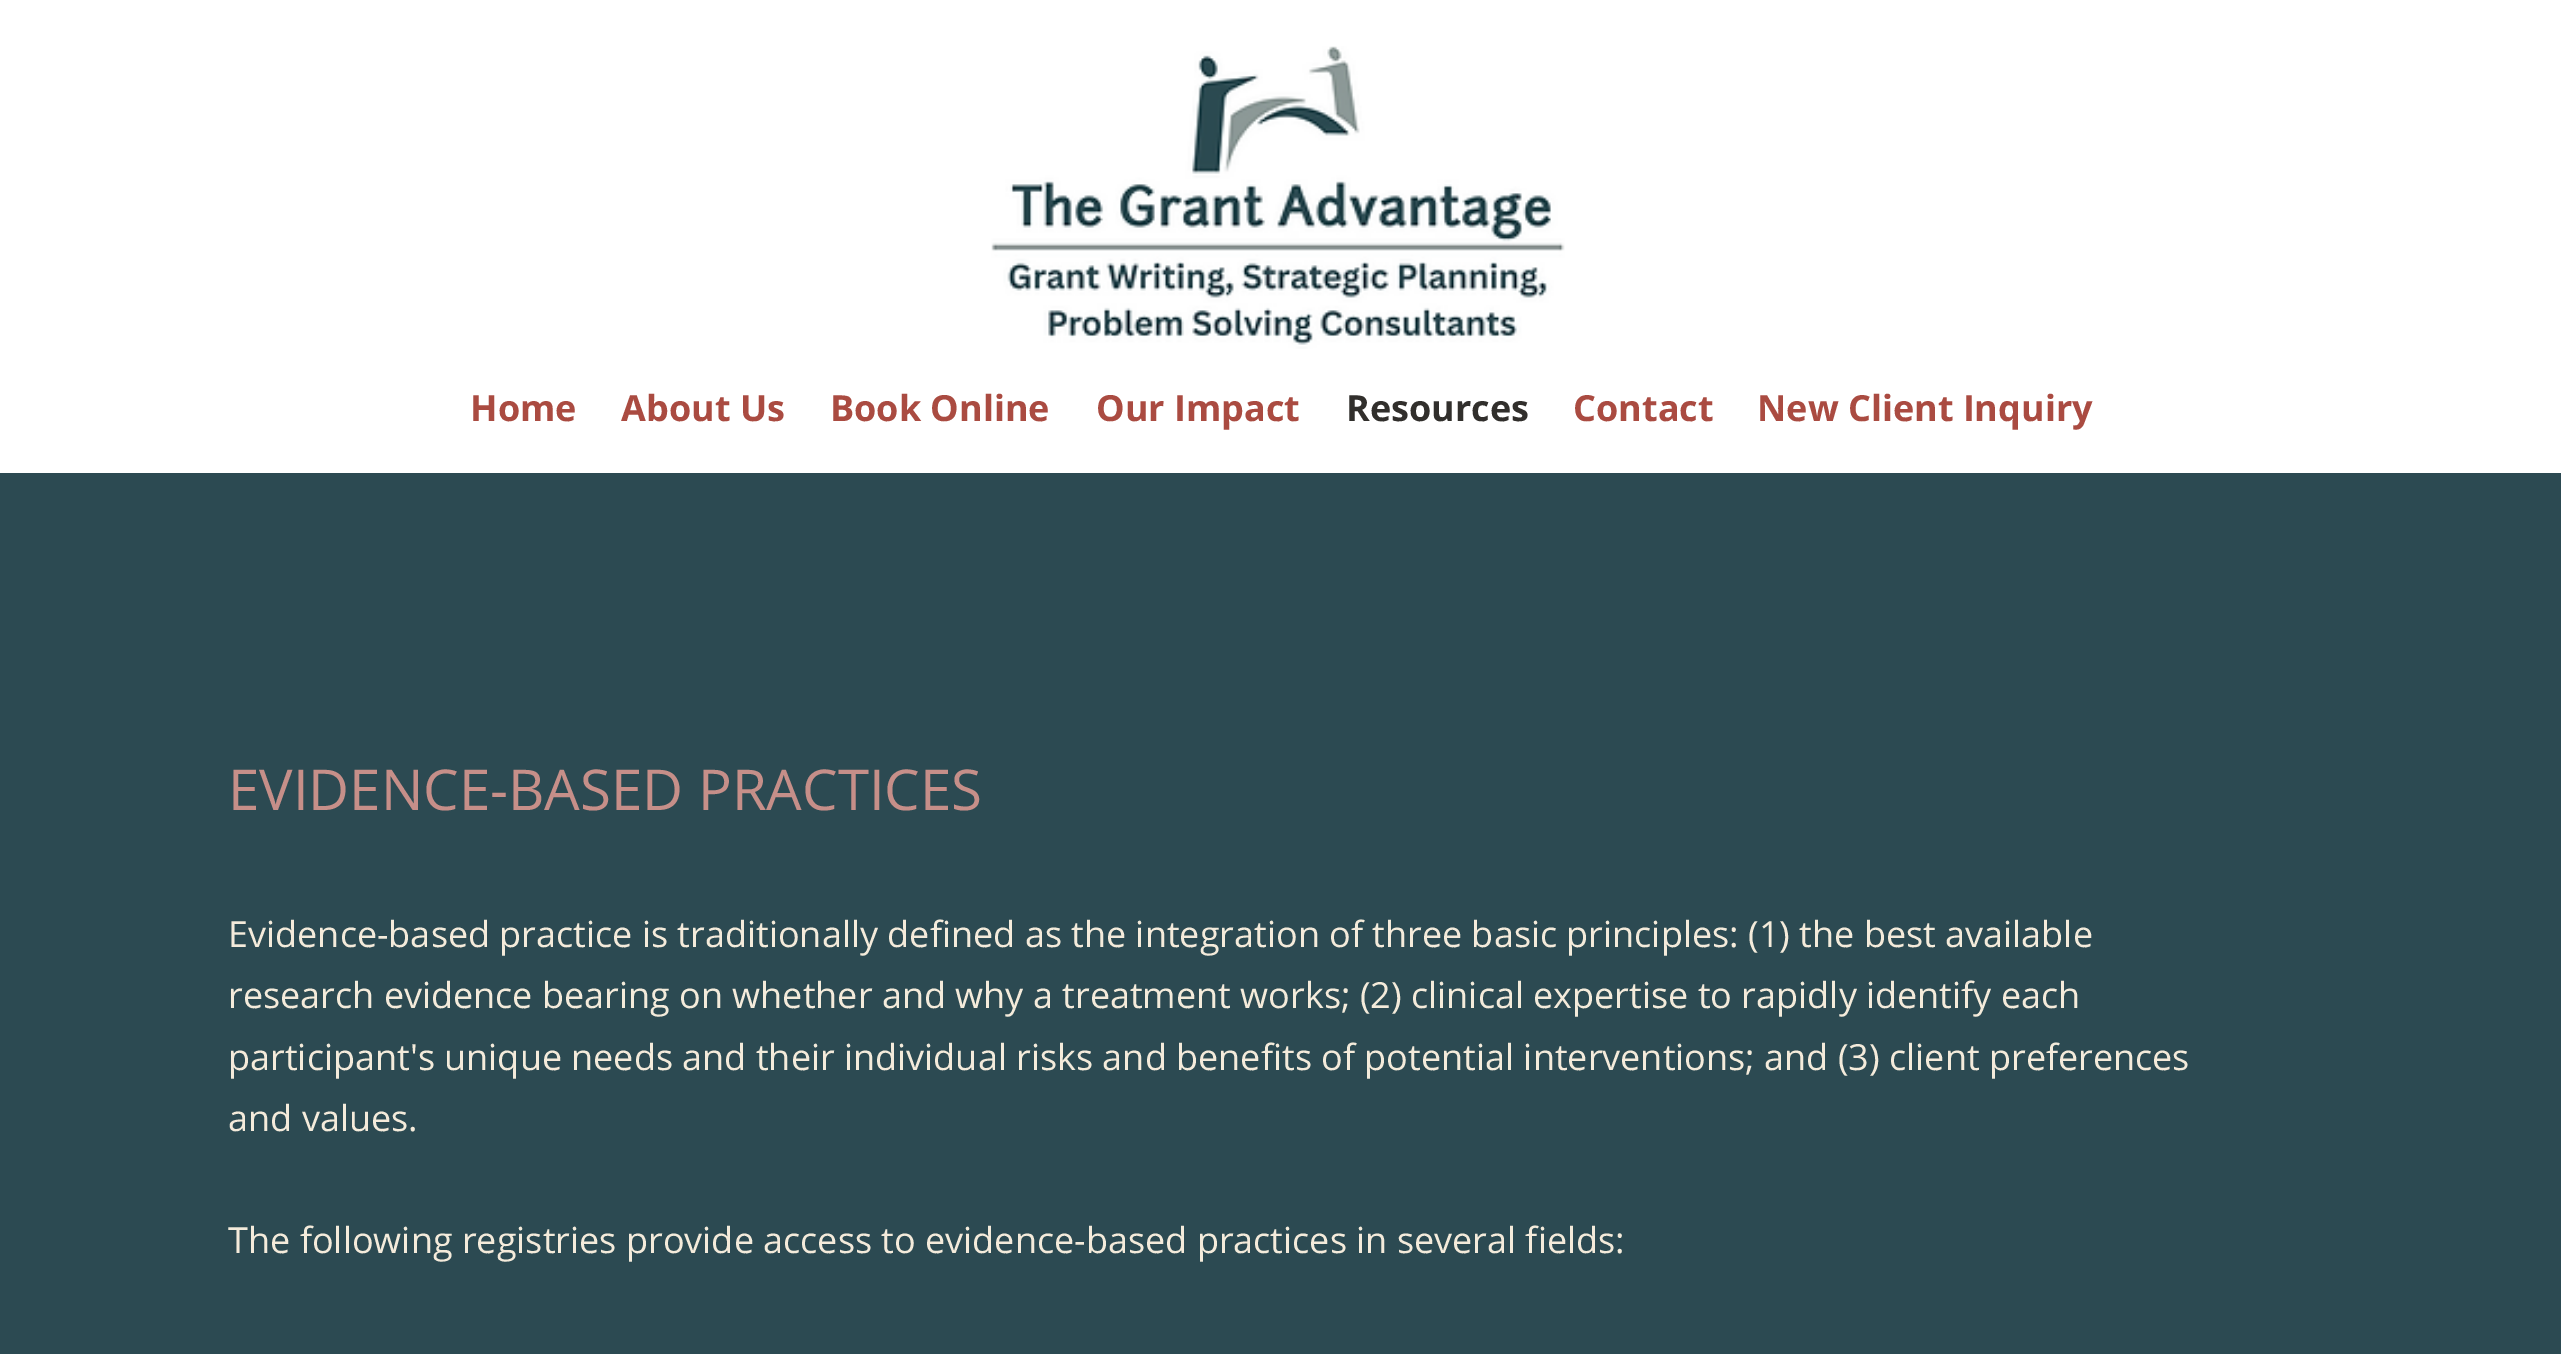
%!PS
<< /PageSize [2561 1354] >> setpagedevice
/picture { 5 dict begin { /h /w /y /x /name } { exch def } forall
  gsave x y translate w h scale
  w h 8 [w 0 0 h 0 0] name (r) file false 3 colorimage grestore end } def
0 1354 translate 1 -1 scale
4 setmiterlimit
0.173 0.29 0.322 setrgbcolor
0 0 2561 1354 rectfill
1 setgray
0 0 2561 473 rectfill
(img1.rgb) 991 46 574 303 picture
/OpenSans-Bold [36 0 0 -36 0 0] selectfont
0.667 0.294 0.255 setrgbcolor
470 421 moveto (Home) show
621 421 moveto (About Us) show
830 421 moveto (Book Online) show
1096 421 moveto (Our Impact) show
0.192 0.184 0.173 setrgbcolor
1346 421 moveto (Resources) show
0.667 0.294 0.255 setrgbcolor
1573 421 moveto (Contact) show
1757 421 moveto (New Client Inquiry) show
/OpenSans-Regular [56.25 0 0 -56.25 0 0] selectfont
0.776 0.561 0.537 setrgbcolor
228 810 moveto (EVIDENCE-BASED PRACTICES) show
/OpenSans-Regular [36 0 0 -36 0 0] selectfont
0.957 0.922 0.859 setrgbcolor
228 947 moveto (Evidence-based practice is traditionally defined as the integration of three basic principles: \(1\) the best available) show
228 1008 moveto (research evidence bearing on whether and why a treatment works; \(2\) clinical expertise to rapidly identify each) show
228 1070 moveto (participant's unique needs and their individual risks and benefits of potential interventions; and \(3\) client preferences) show
228 1131 moveto (and values.) show
228 1253 moveto (The following registries provide access to evidence-based practices in several fields:) show
showpage
